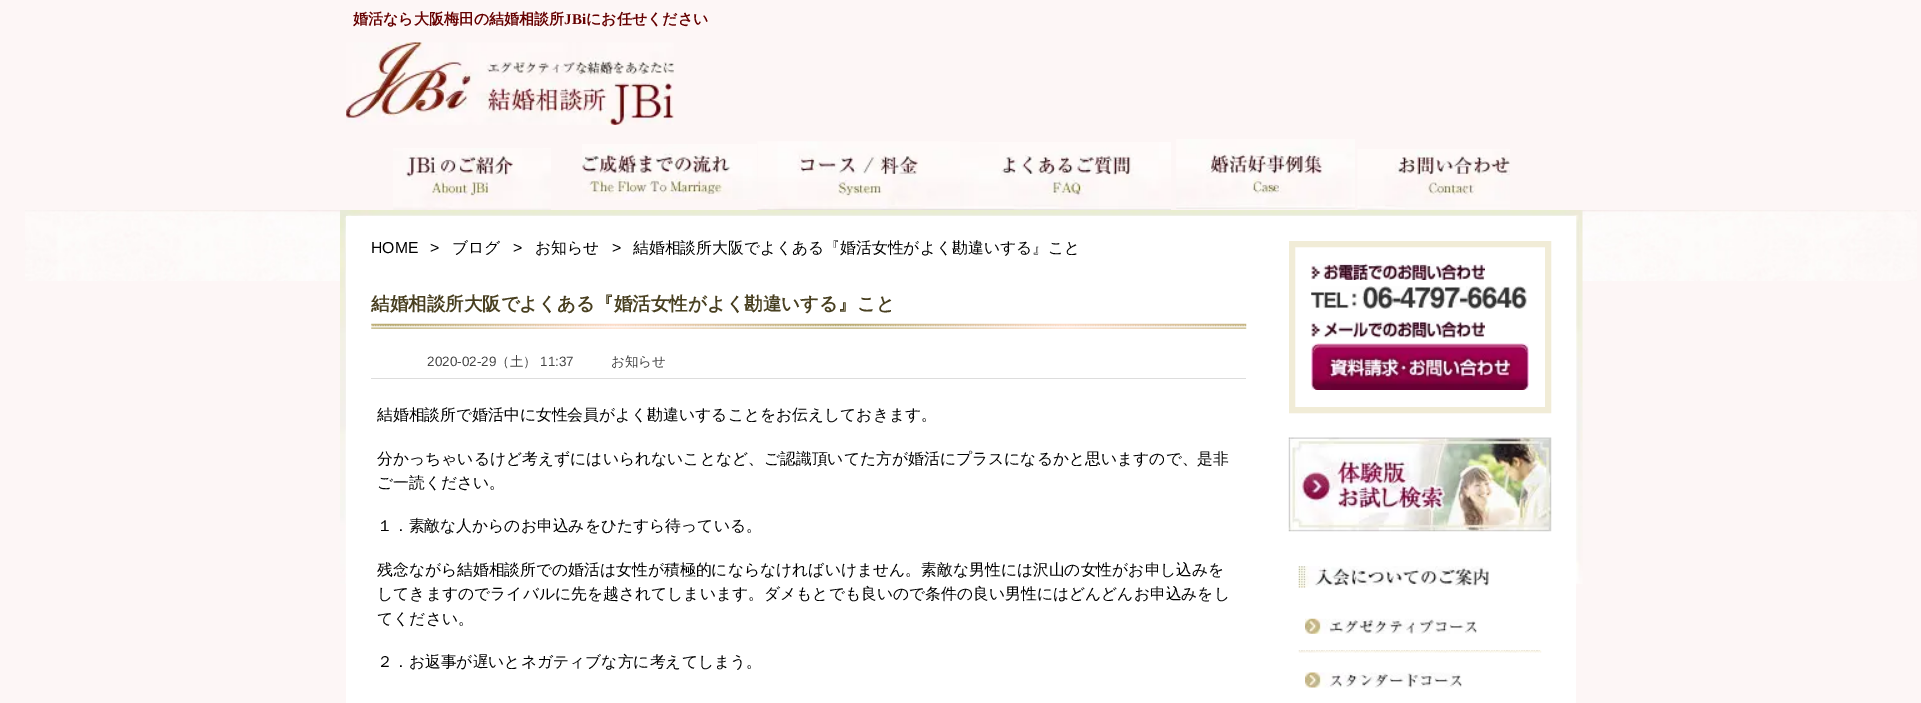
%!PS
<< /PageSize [1921 703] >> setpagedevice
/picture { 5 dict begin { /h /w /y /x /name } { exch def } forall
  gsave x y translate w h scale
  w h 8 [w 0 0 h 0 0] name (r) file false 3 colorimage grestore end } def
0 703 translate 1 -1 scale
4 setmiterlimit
0.992 0.965 0.965 setrgbcolor
0 0 1921 703 rectfill
/WenQuanYiZenHei-Bold [15 0 0 -15 0 0] selectfont
0.4 0 0 setrgbcolor
353 24 moveto (婚活なら大阪梅田の結婚相談所) show
/LiberationSerif-Bold [15 0 0 -15 0 0] selectfont
564 24 moveto (JBi) show
/WenQuanYiZenHei-Bold [15 0 0 -15 0 0] selectfont
586 24 moveto (にお任せください) show
(img1.rgb) 346 42 328 83 picture
(img2.rgb) 393 148 158 62 picture
(img3.rgb) 582 144 175 56 picture
(img4.rgb) 757 141 203 69 picture
(img5.rgb) 960 142 211 68 picture
(img6.rgb) 1176 139 179 70 picture
(img7.rgb) 1357 149 153 61 picture
(img8.rgb) 25 210 1892 71 picture
(img9.rgb) 340 210 1243 374 picture
1 setgray
346 216 1230 487 rectfill
/LiberationSans-Regular [15.8 0 0 -15.8 0 0] selectfont
0 setgray
371 253 moveto (HOME) show
430 253 moveto (>) show
/WenQuanYiZenHei-Medium [15.8 0 0 -15.8 0 0] selectfont
452 253 moveto (ブログ) show
/LiberationSans-Regular [15.8 0 0 -15.8 0 0] selectfont
513 253 moveto (>) show
/WenQuanYiZenHei-Medium [15.8 0 0 -15.8 0 0] selectfont
535 253 moveto (お知らせ) show
/LiberationSans-Regular [15.8 0 0 -15.8 0 0] selectfont
612 253 moveto (>) show
/WenQuanYiZenHei-Medium [15.8 0 0 -15.8 0 0] selectfont
633 253 moveto (結婚相談所大阪でよくある『婚活女性がよく勘違いする』こと) show
(img10.rgb) 371 323 876 6 picture
/WenQuanYiZenHei-Bold [18.5 0 0 -18.5 0 0] selectfont
0.282 0.247 0.125 setrgbcolor
371 310 moveto (結婚相談所大阪でよくある『婚活女性がよく勘違いする』こと) show
0.867 setgray
371 378 875 1 rectfill
/LiberationSans-Regular [13.5 0 0 -13.5 0 0] selectfont
0.267 setgray
427 366 moveto (2020-02-29) show
/WenQuanYiZenHei-Medium [13.5 0 0 -13.5 0 0] selectfont
496 366 moveto (（土）) show
/LiberationSans-Regular [13.5 0 0 -13.5 0 0] selectfont
540 366 moveto (11:37) show
/WenQuanYiZenHei-Medium [13.5 0 0 -13.5 0 0] selectfont
611 366 moveto (お知らせ) show
/WenQuanYiZenHei-Medium [15.8 0 0 -15.8 0 0] selectfont
0 setgray
377 420 moveto (結婚相談所で婚活中に女性会員がよく勘違いすることをお伝えしておきます。) show
377 464 moveto (分かっちゃいるけど考えずにはいられないことなど、ご認識頂いてた方が婚活にプラスになるかと思いますので、是非) show
377 488 moveto (ご一読ください。) show
377 531 moveto (１．素敵な人からのお申込みをひたすら待っている。) show
377 575 moveto (残念ながら結婚相談所での婚活は女性が積極的にならなければいけません。素敵な男性には沢山の女性がお申し込みを) show
377 599 moveto (してきますのでライバルに先を越されてしまいます。ダメもとでも良いので条件の良い男性にはどんどんお申込みをし) show
377 624 moveto (てください。) show
377 667 moveto (２．お返事が遅いとネガティブな方に考えてしまう。) show
0.945 0.925 0.843 setrgbcolor
6 setlinewidth
1292 244 256 166 rectstroke
(img11.rgb) 1311 263 174 17 picture
(img12.rgb) 1311 286 216 23 picture
(img13.rgb) 1311 321 174 17 picture
(img14.rgb) 1311 343 218 47 picture
(img15.rgb) 1288 437 264 95 picture
(img16.rgb) 1298 566 191 22 picture
(img17.rgb) 1298 650 244 3 picture
(img18.rgb) 1305 618 172 16 picture
(img19.rgb) 1305 672 157 16 picture
showpage
